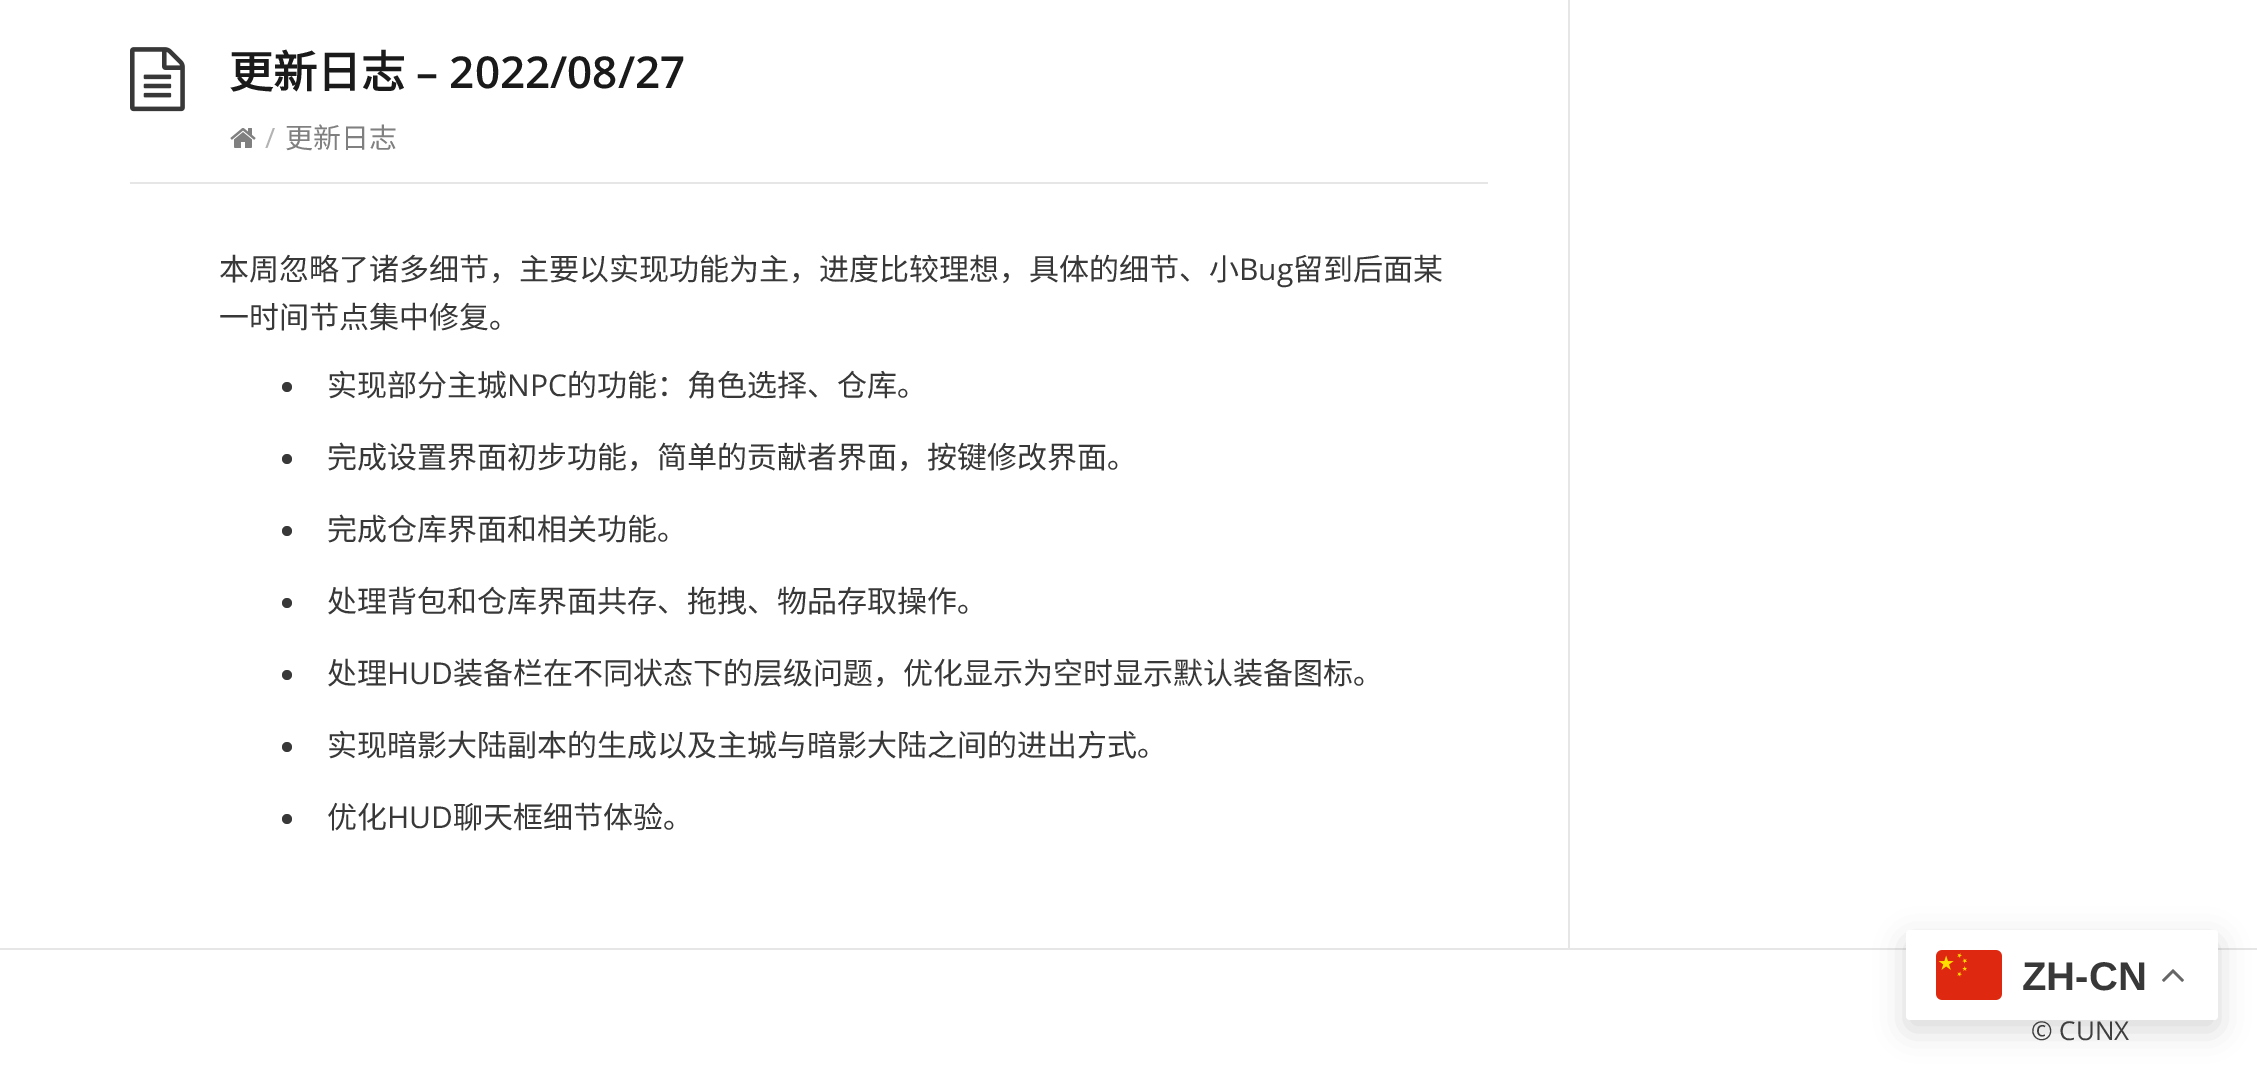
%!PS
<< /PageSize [2257 1072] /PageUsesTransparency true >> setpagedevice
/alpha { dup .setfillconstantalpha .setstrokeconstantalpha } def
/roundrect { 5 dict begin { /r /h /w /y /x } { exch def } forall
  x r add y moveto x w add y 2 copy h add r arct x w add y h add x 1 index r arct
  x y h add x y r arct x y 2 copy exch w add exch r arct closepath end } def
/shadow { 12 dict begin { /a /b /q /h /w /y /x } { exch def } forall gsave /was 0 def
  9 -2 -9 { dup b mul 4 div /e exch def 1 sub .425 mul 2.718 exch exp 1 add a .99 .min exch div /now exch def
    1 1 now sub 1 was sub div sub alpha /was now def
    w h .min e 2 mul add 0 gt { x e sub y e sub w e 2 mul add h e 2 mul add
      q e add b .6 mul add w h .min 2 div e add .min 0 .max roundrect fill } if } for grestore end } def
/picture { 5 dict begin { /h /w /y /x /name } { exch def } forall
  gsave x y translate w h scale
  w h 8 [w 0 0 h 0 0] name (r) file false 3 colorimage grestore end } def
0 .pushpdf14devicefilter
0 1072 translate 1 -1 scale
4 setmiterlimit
1 setgray
0 0 2257 1072 rectfill
0.902 setgray
1568 0 2 948 rectfill
130 182 1358 2 rectfill
(img1.rgb) 130 47 55 65 picture
/NotoSansCJKSC-Bold [44 0 0 -44 0 0] selectfont
0.102 setgray
229 88 moveto (更新日志) show
/OpenSans-SemiBold [44 0 0 -44 0 0] selectfont
416 88 moveto (– 2022/08/27) show
(img2.rgb) 230 128 26 20 picture
/OpenSans-Regular [28 0 0 -28 0 0] selectfont
0.702 setgray
265 148 moveto (/) show
/NotoSansCJKSC-Regular [28 0 0 -28 0 0] selectfont
0.502 setgray
285 148 moveto (更新日志) show
/NotoSansCJKSC-Regular [30 0 0 -30 0 0] selectfont
0.22 setgray
219 280 moveto (本周忽略了诸多细节，主要以实现功能为主，进度比较理想，具体的细节、小) show
/OpenSans-Regular [30 0 0 -30 0 0] selectfont
1239 280 moveto (Bug) show
/NotoSansCJKSC-Regular [30 0 0 -30 0 0] selectfont
1293 280 moveto (留到后面某) show
219 328 moveto (一时间节点集中修复。) show
newpath 287 387 5 0 360 arc closepath fill
327 396 moveto (实现部分主城) show
/OpenSans-Regular [30 0 0 -30 0 0] selectfont
507 396 moveto (NPC) show
/NotoSansCJKSC-Regular [30 0 0 -30 0 0] selectfont
567 396 moveto (的功能：角色选择、仓库。) show
newpath 287 459 5 0 360 arc closepath fill
327 468 moveto (完成设置界面初步功能，简单的贡献者界面，按键修改界面。) show
newpath 287 531 5 0 360 arc closepath fill
327 540 moveto (完成仓库界面和相关功能。) show
newpath 287 603 5 0 360 arc closepath fill
327 612 moveto (处理背包和仓库界面共存、拖拽、物品存取操作。) show
newpath 287 675 5 0 360 arc closepath fill
327 684 moveto (处理) show
/OpenSans-Regular [30 0 0 -30 0 0] selectfont
387 684 moveto (HUD) show
/NotoSansCJKSC-Regular [30 0 0 -30 0 0] selectfont
453 684 moveto (装备栏在不同状态下的层级问题，优化显示为空时显示默认装备图标。) show
newpath 287 747 5 0 360 arc closepath fill
327 756 moveto (实现暗影大陆副本的生成以及主城与暗影大陆之间的进出方式。) show
newpath 287 819 5 0 360 arc closepath fill
327 828 moveto (优化) show
/OpenSans-Regular [30 0 0 -30 0 0] selectfont
387 828 moveto (HUD) show
/NotoSansCJKSC-Regular [30 0 0 -30 0 0] selectfont
453 828 moveto (聊天框细节体验。) show
0.902 setgray
0 948 2257 2 rectfill
/OpenSans-Regular [26 0 0 -26 0 0] selectfont
0.267 setgray
2031 1040 moveto (© CUNX) show
0 setgray
1906 940 312 90 4 15 0.15 shadow
1 setgray
1906 930 312 90 4 roundrect fill
(img3.rgb) 1936 950 66 50 picture
/LiberationSans-Bold [40 0 0 -40 0 0] selectfont
0.22 setgray
2022 990 moveto (ZH-CN) show
(img4.rgb) 2162 969 22 13 picture
.poppdf14devicefilter showpage
